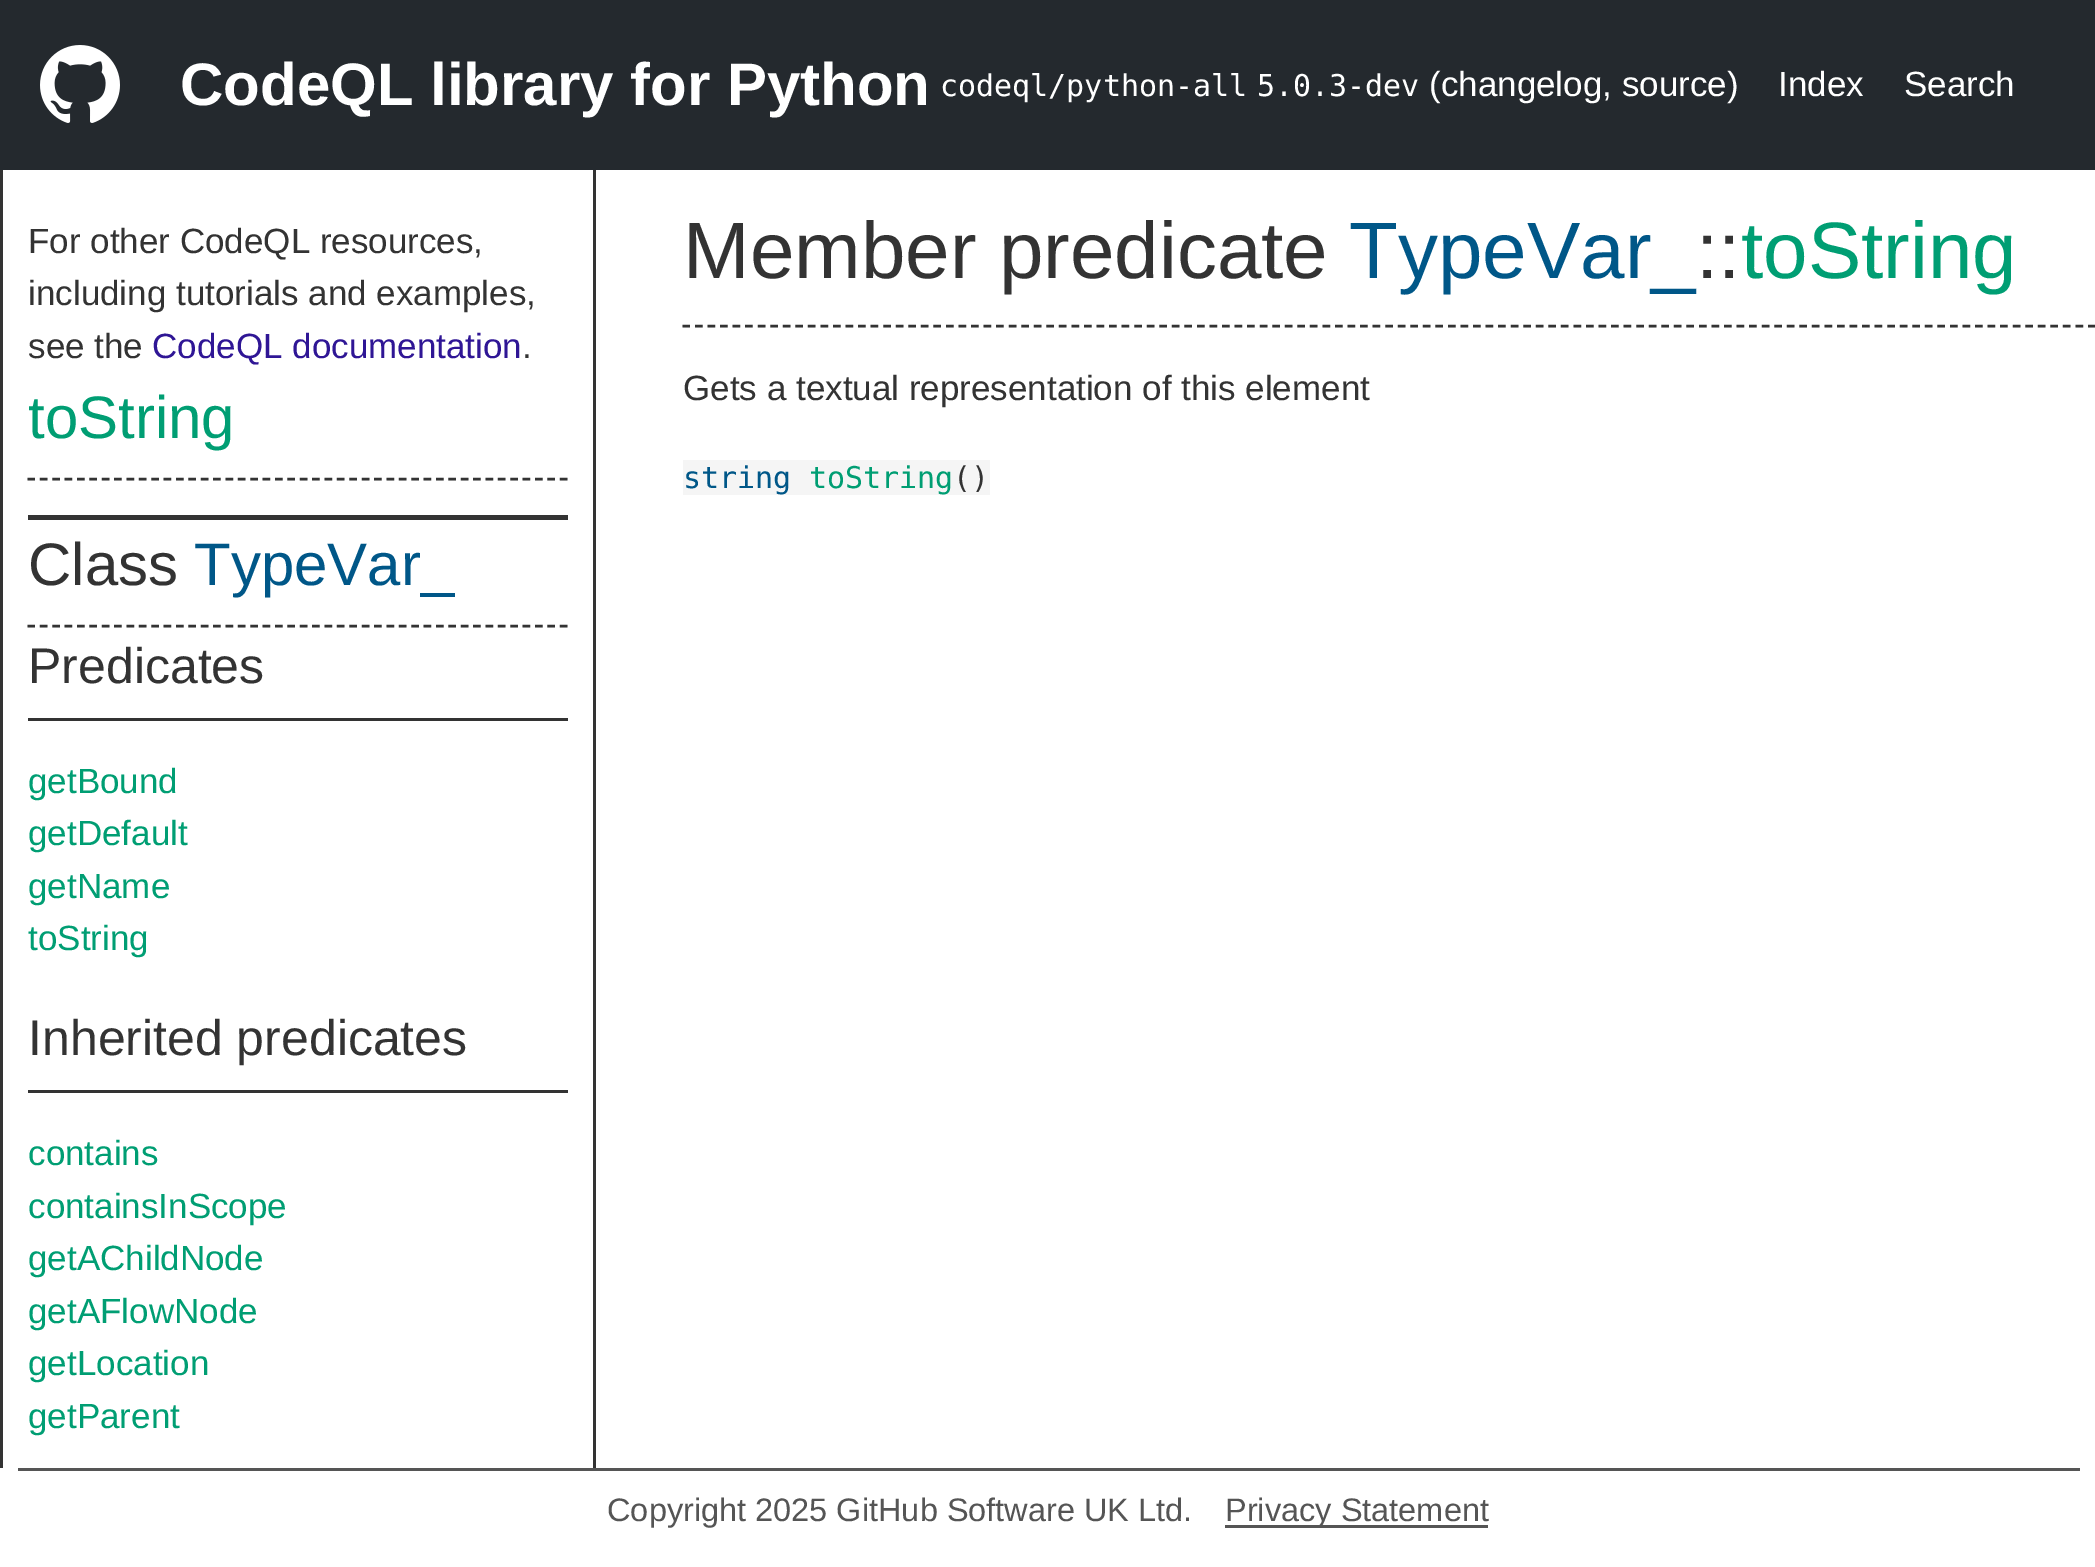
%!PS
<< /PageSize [2095 1567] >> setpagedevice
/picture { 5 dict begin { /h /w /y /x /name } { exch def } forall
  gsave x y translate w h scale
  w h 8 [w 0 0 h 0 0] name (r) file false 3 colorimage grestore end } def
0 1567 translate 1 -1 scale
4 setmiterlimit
1 setgray
0 0 2095 1567 rectfill
0.141 0.161 0.18 setrgbcolor
0 0 2095 170 rectfill
(img1.rgb) 40 45 80 78 picture
/LiberationSans-Bold [60 0 0 -60 0 0] selectfont
1 setgray
180 105 moveto (CodeQL library for Python) show
/DejaVuSansMono-Regular [30 0 0 -30 0 0] selectfont
940 96 moveto (codeql/python-all) show
1257 96 moveto (5.0.3-dev) show
/LiberationSans-Regular [35 0 0 -35 0 0] selectfont
1429 96 moveto (\(changelog, source\)) show
1778 96 moveto (Index) show
1904 96 moveto (Search) show
0.2 setgray
593 170 3 1298 rectfill
0 170 3 1298 rectfill
28 515 540 5 rectfill
28 253 moveto (For other CodeQL resources,) show
28 305 moveto (including tutorials and examples,) show
28 358 moveto (see the) show
0.184 0.086 0.584 setrgbcolor
152 358 moveto (CodeQL documentation) show
0.2 setgray
522 358 moveto (.) show
2.5 setlinewidth
[7.5 4.88] 0 setdash
newpath 27.5 479 moveto 567.5 479 lineto stroke
/LiberationSans-Regular [60 0 0 -60 0 0] selectfont
0 0.62 0.451 setrgbcolor
28 438 moveto (toString) show
0.2 setgray
newpath 27.5 626 moveto 567.5 626 lineto stroke
28 585 moveto (Class) show
0 0.341 0.533 setrgbcolor
194 585 moveto (TypeVar_) show
0.2 setgray
28 718 540 3 rectfill
/LiberationSans-Regular [50 0 0 -50 0 0] selectfont
28 683 moveto (Predicates) show
/LiberationSans-Regular [35 0 0 -35 0 0] selectfont
0 0.62 0.451 setrgbcolor
28 793 moveto (getBound) show
28 845 moveto (getDefault) show
28 898 moveto (getName) show
28 950 moveto (toString) show
0.2 setgray
28 1090 540 3 rectfill
/LiberationSans-Regular [50 0 0 -50 0 0] selectfont
28 1055 moveto (Inherited predicates) show
/LiberationSans-Regular [35 0 0 -35 0 0] selectfont
0 0.62 0.451 setrgbcolor
28 1165 moveto (contains) show
28 1218 moveto (containsInScope) show
28 1270 moveto (getAChildNode) show
28 1323 moveto (getAFlowNode) show
28 1375 moveto (getLocation) show
28 1428 moveto (getParent) show
0.2 setgray
[7.5 5.05] 0 setdash
newpath 682.5 326 moveto 2095 326 lineto stroke
/LiberationSans-Regular [80 0 0 -80 0 0] selectfont
683 278 moveto (Member predicate) show
0 0.341 0.533 setrgbcolor
1349 278 moveto (TypeVar_) show
0.2 setgray
1696 278 moveto (::) show
0 0.62 0.451 setrgbcolor
1741 278 moveto (toString) show
/LiberationSans-Regular [35 0 0 -35 0 0] selectfont
0.2 setgray
683 400 moveto (Gets a textual representation of this element) show
0.961 setgray
683 460 307 35 rectfill
/DejaVuSansMono-Regular [30 0 0 -30 0 0] selectfont
0 0.341 0.533 setrgbcolor
683 488 moveto (string) show
0 0.62 0.451 setrgbcolor
809 488 moveto (toString) show
0.2 setgray
953 488 moveto (\(\)) show
0.333 setgray
18 1468 2062 3 rectfill
/LiberationSans-Regular [32.5 0 0 -32.5 0 0] selectfont
607 1521 moveto (Copyright 2025 GitHub Software UK Ltd.) show
1225 1525 263 3 rectfill
1225 1521 moveto (Privacy Statement) show
showpage
